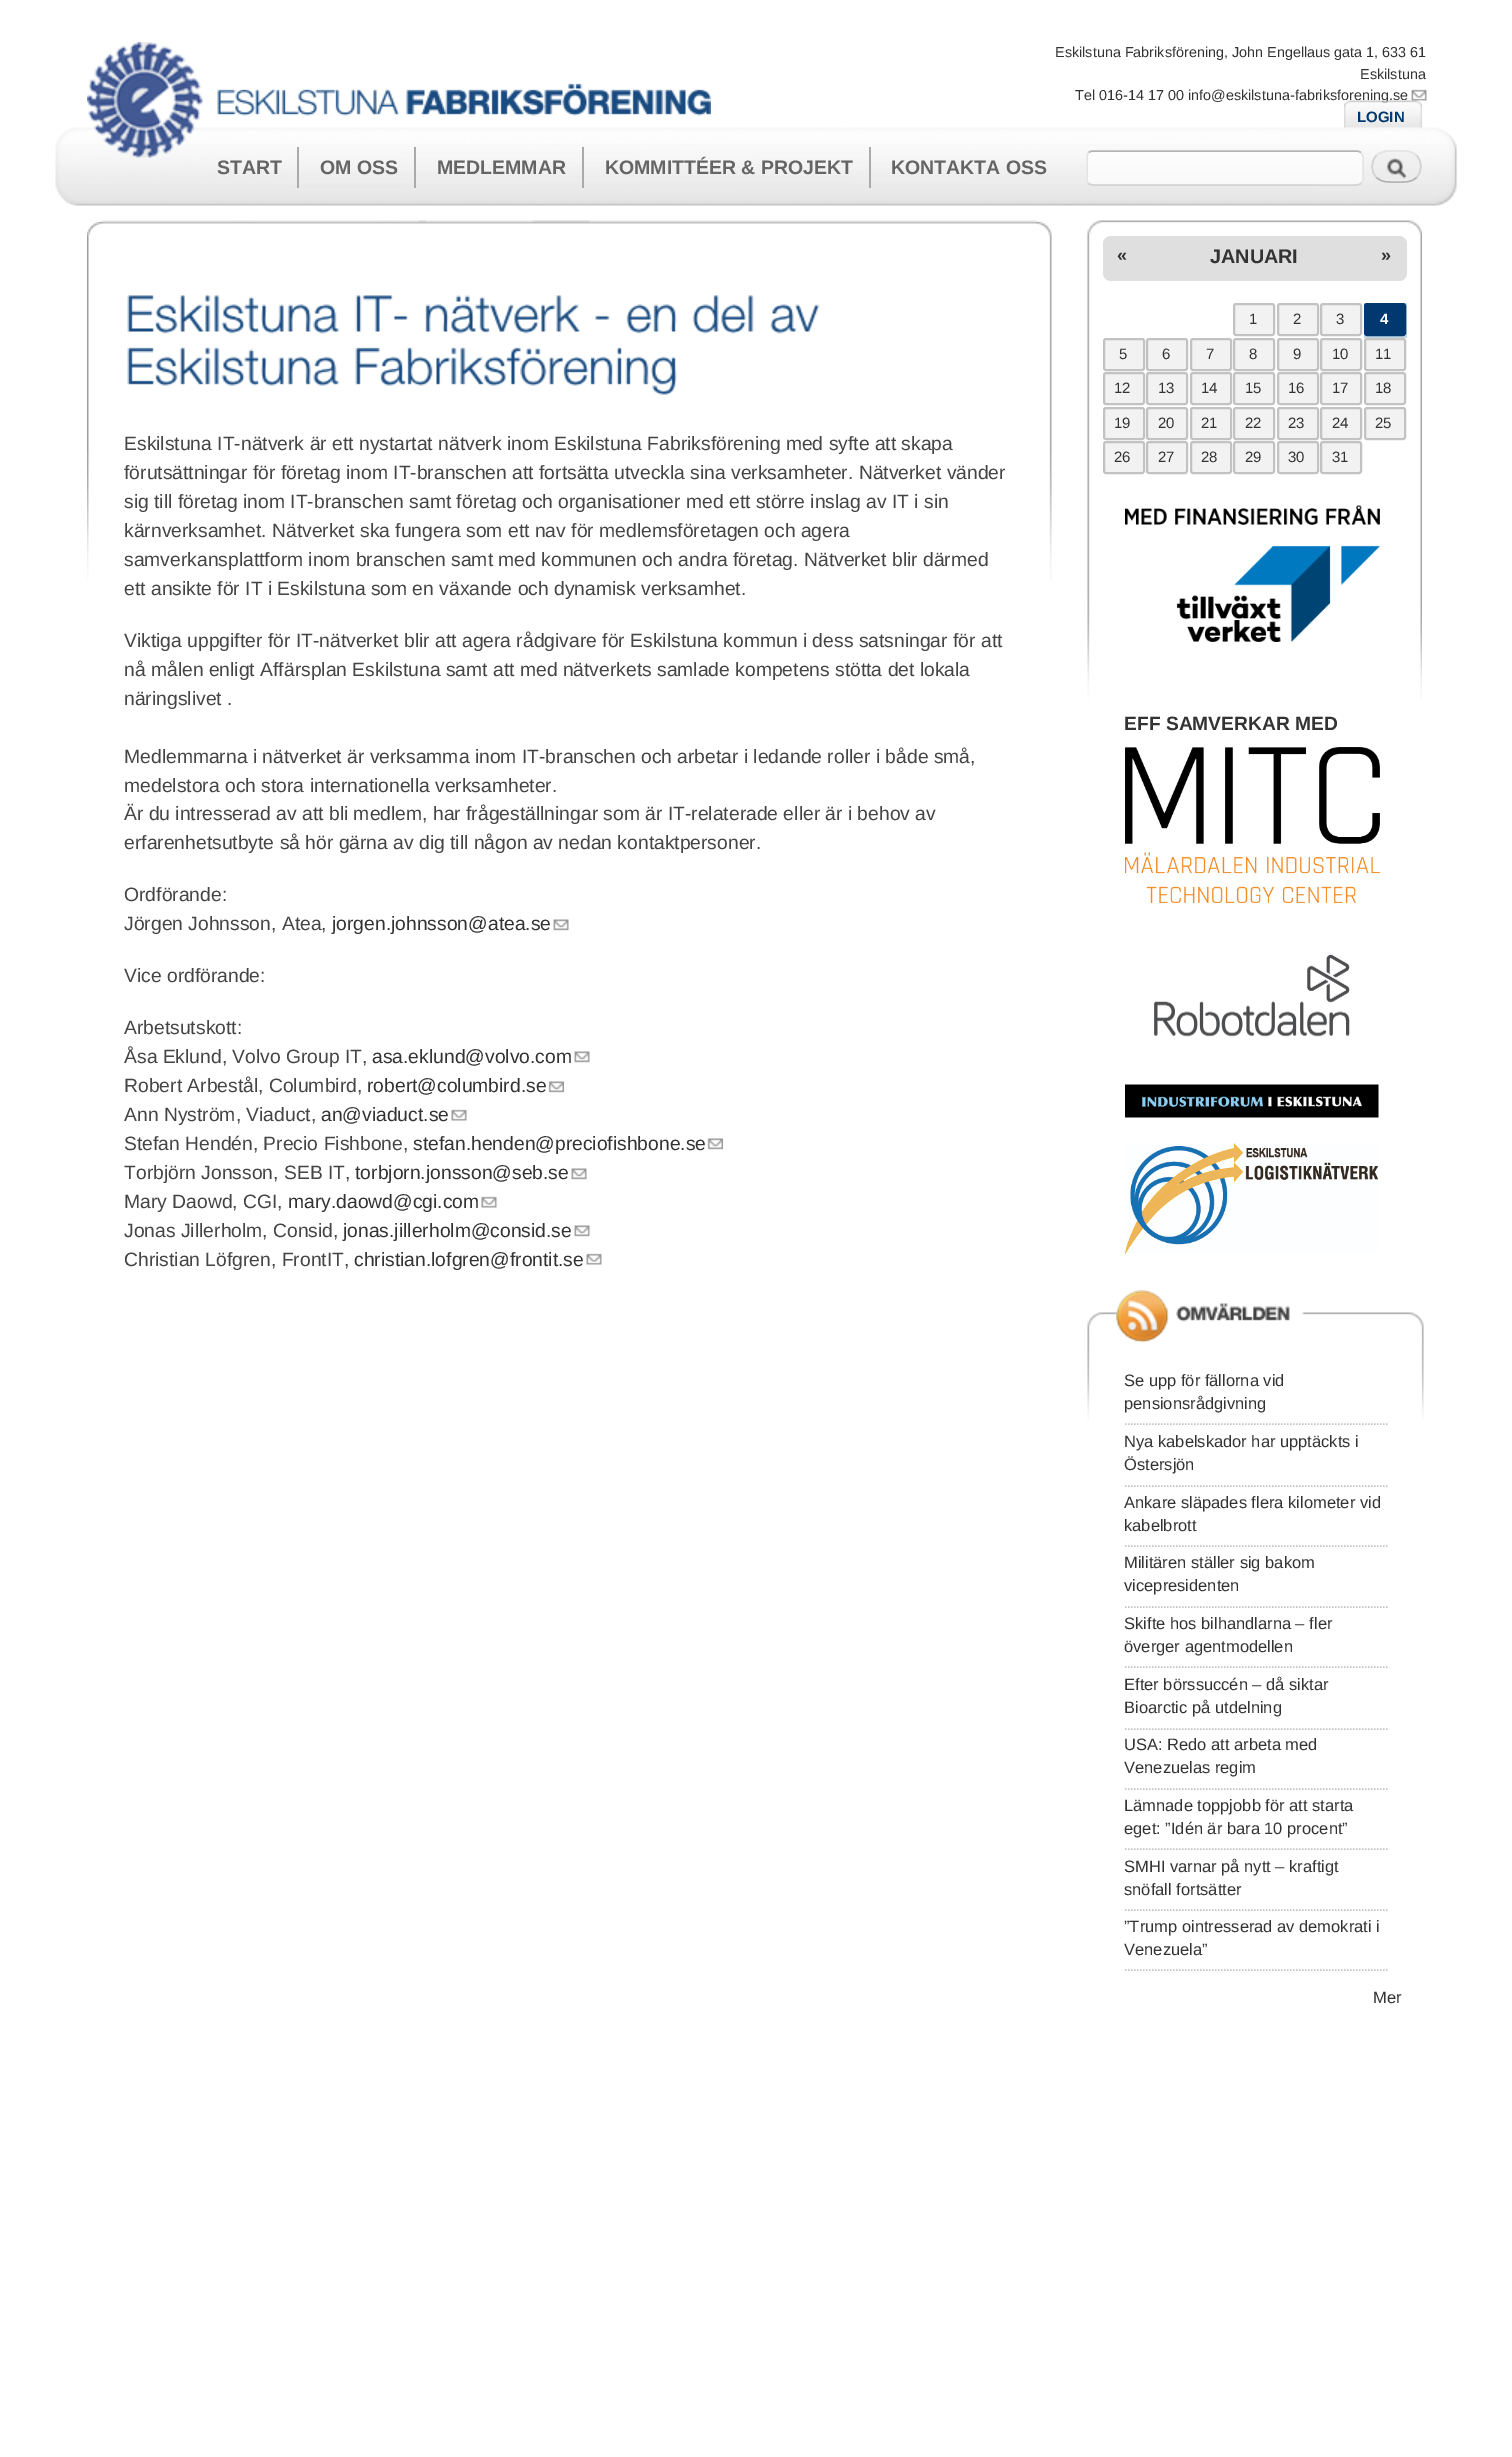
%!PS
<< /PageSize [1512 2457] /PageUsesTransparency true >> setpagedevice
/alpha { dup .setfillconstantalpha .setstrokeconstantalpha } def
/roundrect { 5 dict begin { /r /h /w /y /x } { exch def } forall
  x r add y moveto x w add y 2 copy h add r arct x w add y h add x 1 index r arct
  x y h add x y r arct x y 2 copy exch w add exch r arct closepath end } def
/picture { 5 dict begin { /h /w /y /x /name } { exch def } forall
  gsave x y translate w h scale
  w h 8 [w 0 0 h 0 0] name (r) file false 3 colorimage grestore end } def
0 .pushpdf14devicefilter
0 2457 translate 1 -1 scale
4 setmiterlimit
1 setgray
0 0 1512 2457 rectfill
(img1.rgb) 55 127 1402 79 picture
(img2.rgb) 87 42 624 116 picture
/LiberationSans-Regular [14.4 0 0 -14.4 0 0] selectfont
0.2 setgray
1055 57 moveto (Eskilstuna Fabriksförening, John Engellaus gata 1, 633 61) show
1360 79 moveto (Eskilstuna) show
1075 100 moveto (Tel 016-14 17 00 info@eskilstuna-fabriksforening.se) show
(img3.rgb) 1411 89 16 12 picture
(img4.rgb) 1344 100 78 28 picture
/LiberationSans-Bold [15 0 0 -15 0 0] selectfont
0 0.224 0.435 setrgbcolor
1357 122 moveto (LOGIN) show
0.7 alpha
1 setgray
1086 150 278 36 8 roundrect fill
1 alpha
0.706 setgray
1.5 setlinewidth
newpath 1088.5 152.5 moveto 1090 151.5 1091.5 151 1093.5 151 curveto 1356 151 lineto 1358 151 1359.5 151.5 1361 152.5 curveto stroke
0.894 setgray
newpath 1361 152.5 moveto 1362 154 1363 155.5 1363 157.5 curveto 1363 178.5 lineto 1363 180.5 1362 182 1361 183.5 curveto stroke
0.824 setgray
newpath 1361 183.5 moveto 1359.5 184.5 1358 185 1356 185 curveto 1093.5 185 lineto 1091.5 185 1090 184.5 1088.5 183.5 curveto stroke
0.894 setgray
newpath 1088.5 183.5 moveto 1087.5 182 1087 180.5 1087 178.5 curveto 1087 157.5 lineto 1087 155.5 1087.5 154 1088.5 152.5 curveto stroke
(img5.rgb) 1372 152 49 27 picture
newpath 1376.5 155.5 moveto 1382 150 1389.5 151 1396.5 151 curveto 1403.5 151 1411 150 1416.5 155.5 curveto stroke
0.824 setgray
newpath 1416.5 155.5 moveto 1422.5 161.5 1422.5 171.5 1416.5 177.5 curveto stroke
0.706 setgray
newpath 1416.5 177.5 moveto 1411 183 1403.5 182 1396.5 182 curveto 1389.5 182 1382 183 1376.5 177.5 curveto stroke
0.824 setgray
newpath 1376.5 177.5 moveto 1370.5 171.5 1370.5 161.5 1376.5 155.5 curveto stroke
0.667 setgray
297 147 2 41 rectfill
/LiberationSans-Bold [19.5 0 0 -19.5 0 0] selectfont
0.396 setgray
217 174 moveto (START) show
0.667 setgray
414 147 2 41 rectfill
0.396 setgray
320 174 moveto (OM OSS) show
0.667 setgray
582 147 2 41 rectfill
0.396 setgray
437 174 moveto (MEDLEMMAR) show
0.667 setgray
869 147 2 41 rectfill
0.396 setgray
605 174 moveto (KOMMITTÉER & PROJEKT) show
891 174 moveto (KONTAKTA OSS) show
(img6.rgb) 87 220 965 361 picture
(img7.rgb) 127 295 213 39 picture
(img8.rgb) 355 295 54 37 picture
(img9.rgb) 425 295 155 39 picture
(img10.rgb) 595 315 15 5 picture
(img11.rgb) 626 304 51 30 picture
(img12.rgb) 692 295 62 39 picture
(img13.rgb) 770 304 50 30 picture
(img14.rgb) 127 347 213 39 picture
(img15.rgb) 355 347 322 48 picture
/LiberationSans-Regular [19.3 0 0 -19.3 0 0] selectfont
0.271 setgray
124 450 moveto (Eskilstuna IT-nätverk är ett nystartat nätverk inom Eskilstuna Fabriksförening med syfte att skapa) show
124 479 moveto (förutsättningar för företag inom IT-branschen att fortsätta utveckla sina verksamheter. Nätverket vänder) show
124 508 moveto (sig till företag inom IT-branschen samt företag och organisationer med ett större inslag av IT i sin) show
124 537 moveto (kärnverksamhet. Nätverket ska fungera som ett nav för medlemsföretagen och agera) show
124 566 moveto (samverkansplattform inom branschen samt med kommunen och andra företag. Nätverket blir därmed) show
124 595 moveto (ett ansikte för IT i Eskilstuna som en växande och dynamisk verksamhet.) show
124 647 moveto (Viktiga uppgifter för IT-nätverket blir att agera rådgivare för Eskilstuna kommun i dess satsningar för att) show
124 676 moveto (nå målen enligt Affärsplan Eskilstuna samt att med nätverkets samlade kompetens stötta det lokala) show
124 705 moveto (näringslivet .) show
124 763 moveto (Medlemmarna i nätverket är verksamma inom IT-branschen och arbetar i ledande roller i både små,) show
124 792 moveto (medelstora och stora internationella verksamheter.) show
124 820 moveto (Är du intresserad av att bli medlem, har frågeställningar som är IT-relaterade eller är i behov av) show
124 849 moveto (erfarenhetsutbyte så hör gärna av dig till någon av nedan kontaktpersoner.) show
124 901 moveto (Ordförande:) show
124 930 moveto (Jörgen Johnsson, Atea,) show
0.2 setgray
332 930 moveto (jorgen.johnsson@atea.se) show
(img16.rgb) 553 919 16 12 picture
0.271 setgray
124 982 moveto (Vice ordförande:) show
124 1034 moveto (Arbetsutskott:) show
124 1063 moveto (Åsa Eklund, Volvo Group IT,) show
0.2 setgray
372 1063 moveto (asa.eklund@volvo.com) show
(img16.rgb) 574 1051 16 12 picture
0.271 setgray
124 1092 moveto (Robert Arbestål, Columbird,) show
0.2 setgray
367 1092 moveto (robert@columbird.se) show
(img17.rgb) 548 1081 16 12 picture
0.271 setgray
124 1121 moveto (Ann Nyström, Viaduct,) show
0.2 setgray
321 1121 moveto (an@viaduct.se) show
(img18.rgb) 451 1109 16 12 picture
0.271 setgray
124 1150 moveto (Stefan Hendén, Precio Fishbone,) show
0.2 setgray
413 1150 moveto (stefan.henden@preciofishbone.se) show
(img19.rgb) 707 1138 16 12 picture
0.271 setgray
124 1179 moveto (Torbjörn Jonsson, SEB IT,) show
0.2 setgray
355 1179 moveto (torbjorn.jonsson@seb.se) show
(img16.rgb) 571 1168 16 12 picture
0.271 setgray
124 1208 moveto (Mary Daowd, CGI,) show
0.2 setgray
288 1208 moveto (mary.daowd@cgi.com) show
(img18.rgb) 481 1196 16 12 picture
0.271 setgray
124 1237 moveto (Jonas Jillerholm, Consid,) show
0.2 setgray
343 1237 moveto (jonas.jillerholm@consid.se) show
(img16.rgb) 574 1225 16 12 picture
0.271 setgray
124 1266 moveto (Christian Löfgren, FrontIT,) show
0.2 setgray
354 1266 moveto (christian.lofgren@frontit.se) show
(img3.rgb) 586 1253 16 12 picture
(img20.rgb) 1087 220 335 480 picture
0.875 setgray
1103 236 304 45 8 roundrect fill
/LiberationSans-Bold [19.75 0 0 -19.75 0 0] selectfont
0.2 setgray
1210 263 moveto (JANUARI) show
/LiberationSans-Bold [18 0 0 -18 0 0] selectfont
1117 261 moveto («) show
1381 261 moveto (») show
0.949 setgray
1234 304 40 31 2 roundrect gsave fill grestore
0.761 setgray
2 setlinewidth
stroke
/LiberationSans-Regular [15 0 0 -15 0 0] selectfont
0.2 setgray
1249 324 moveto (1) show
0.949 setgray
1278 304 40 31 2 roundrect gsave fill grestore
0.761 setgray
stroke
0.2 setgray
1293 324 moveto (2) show
0.949 setgray
1321 304 40 31 2 roundrect gsave fill grestore
0.761 setgray
stroke
0.2 setgray
1336 324 moveto (3) show
0.765 0.839 0.894 setrgbcolor
1364 303 43 35 rectfill
0.004 0.22 0.439 setrgbcolor
1365 304 40 31 2 roundrect gsave fill grestore
stroke
/LiberationSans-Bold [15 0 0 -15 0 0] selectfont
1 setgray
1380 324 moveto (4) show
0.949 setgray
1104 339 40 31 2 roundrect gsave fill grestore
0.761 setgray
stroke
/LiberationSans-Regular [15 0 0 -15 0 0] selectfont
0.2 setgray
1119 359 moveto (5) show
0.949 setgray
1147 339 40 31 2 roundrect gsave fill grestore
0.761 setgray
stroke
0.2 setgray
1162 359 moveto (6) show
0.949 setgray
1191 339 40 31 2 roundrect gsave fill grestore
0.761 setgray
stroke
0.2 setgray
1206 359 moveto (7) show
0.949 setgray
1234 339 40 31 2 roundrect gsave fill grestore
0.761 setgray
stroke
0.2 setgray
1249 359 moveto (8) show
0.949 setgray
1278 339 40 31 2 roundrect gsave fill grestore
0.761 setgray
stroke
0.2 setgray
1293 359 moveto (9) show
0.949 setgray
1321 339 40 31 2 roundrect gsave fill grestore
0.761 setgray
stroke
0.2 setgray
1332 359 moveto (10) show
0.949 setgray
1365 339 40 31 2 roundrect gsave fill grestore
0.761 setgray
stroke
0.2 setgray
1375 359 moveto (11) show
0.949 setgray
1104 373 40 31 2 roundrect gsave fill grestore
0.761 setgray
stroke
0.2 setgray
1114 393 moveto (12) show
0.949 setgray
1147 373 40 31 2 roundrect gsave fill grestore
0.761 setgray
stroke
0.2 setgray
1158 393 moveto (13) show
0.949 setgray
1191 373 40 31 2 roundrect gsave fill grestore
0.761 setgray
stroke
0.2 setgray
1201 393 moveto (14) show
0.949 setgray
1234 373 40 31 2 roundrect gsave fill grestore
0.761 setgray
stroke
0.2 setgray
1245 393 moveto (15) show
0.949 setgray
1278 373 40 31 2 roundrect gsave fill grestore
0.761 setgray
stroke
0.2 setgray
1288 393 moveto (16) show
0.949 setgray
1321 373 40 31 2 roundrect gsave fill grestore
0.761 setgray
stroke
0.2 setgray
1332 393 moveto (17) show
0.949 setgray
1365 373 40 31 2 roundrect gsave fill grestore
0.761 setgray
stroke
0.2 setgray
1375 393 moveto (18) show
0.949 setgray
1104 408 40 31 2 roundrect gsave fill grestore
0.761 setgray
stroke
0.2 setgray
1114 428 moveto (19) show
0.949 setgray
1147 408 40 31 2 roundrect gsave fill grestore
0.761 setgray
stroke
0.2 setgray
1158 428 moveto (20) show
0.949 setgray
1191 408 40 31 2 roundrect gsave fill grestore
0.761 setgray
stroke
0.2 setgray
1201 428 moveto (21) show
0.949 setgray
1234 408 40 31 2 roundrect gsave fill grestore
0.761 setgray
stroke
0.2 setgray
1245 428 moveto (22) show
0.949 setgray
1278 408 40 31 2 roundrect gsave fill grestore
0.761 setgray
stroke
0.2 setgray
1288 428 moveto (23) show
0.949 setgray
1321 408 40 31 2 roundrect gsave fill grestore
0.761 setgray
stroke
0.2 setgray
1332 428 moveto (24) show
0.949 setgray
1365 408 40 31 2 roundrect gsave fill grestore
0.761 setgray
stroke
0.2 setgray
1375 428 moveto (25) show
0.949 setgray
1104 442 40 31 2 roundrect gsave fill grestore
0.761 setgray
stroke
0.2 setgray
1114 462 moveto (26) show
0.949 setgray
1147 442 40 31 2 roundrect gsave fill grestore
0.761 setgray
stroke
0.2 setgray
1158 462 moveto (27) show
0.949 setgray
1191 442 40 31 2 roundrect gsave fill grestore
0.761 setgray
stroke
0.2 setgray
1201 462 moveto (28) show
0.949 setgray
1234 442 40 31 2 roundrect gsave fill grestore
0.761 setgray
stroke
0.2 setgray
1245 462 moveto (29) show
0.949 setgray
1278 442 40 31 2 roundrect gsave fill grestore
0.761 setgray
stroke
0.2 setgray
1288 462 moveto (30) show
0.949 setgray
1321 442 40 31 2 roundrect gsave fill grestore
0.761 setgray
stroke
0.2 setgray
1332 462 moveto (31) show
(img21.rgb) 1125 505 255 137 picture
/LiberationSans-Bold [19.25 0 0 -19.25 0 0] selectfont
1124 730 moveto (EFF SAMVERKAR MED) show
(img22.rgb) 1125 747 255 156 picture
(img23.rgb) 1154 954 196 83 picture
(img24.rgb) 1125 1084 254 34 picture
(img25.rgb) 1125 1143 253 111 picture
(img26.rgb) 1087 1290 337 131 picture
0.761 setgray
1.5 setlinewidth
[1.5 1.5] 0 setdash
newpath 1125 1424 moveto 1387.5 1424 lineto stroke
/LiberationSans-Regular [16.5 0 0 -16.5 0 0] selectfont
0.2 setgray
1124 1386 moveto (Se upp för fällorna vid) show
1124 1409 moveto (pensionsrådgivning) show
0.761 setgray
newpath 1125 1486 moveto 1387.5 1486 lineto stroke
0.2 setgray
1124 1447 moveto (Nya kabelskador har upptäckts i) show
1124 1470 moveto (Östersjön) show
0.761 setgray
newpath 1125 1546 moveto 1387.5 1546 lineto stroke
0.2 setgray
1124 1508 moveto (Ankare släpades flera kilometer vid) show
1124 1531 moveto (kabelbrott) show
0.761 setgray
newpath 1125 1607 moveto 1387.5 1607 lineto stroke
0.2 setgray
1124 1568 moveto (Militären ställer sig bakom) show
1124 1591 moveto (vicepresidenten) show
0.761 setgray
newpath 1125 1667 moveto 1387.5 1667 lineto stroke
0.2 setgray
1124 1629 moveto (Skifte hos bilhandlarna – fler) show
1124 1652 moveto (överger agentmodellen) show
0.761 setgray
newpath 1125 1729 moveto 1387.5 1729 lineto stroke
0.2 setgray
1124 1690 moveto (Efter börssuccén – då siktar) show
1124 1713 moveto (Bioarctic på utdelning) show
0.761 setgray
newpath 1125 1789 moveto 1387.5 1789 lineto stroke
0.2 setgray
1124 1750 moveto (USA: Redo att arbeta med) show
1124 1773 moveto (Venezuelas regim) show
0.761 setgray
newpath 1125 1849 moveto 1387.5 1849 lineto stroke
0.2 setgray
1124 1811 moveto (Lämnade toppjobb för att starta) show
1124 1834 moveto (eget: ”Idén är bara 10 procent”) show
0.761 setgray
newpath 1125 1910 moveto 1387.5 1910 lineto stroke
0.2 setgray
1124 1872 moveto (SMHI varnar på nytt – kraftigt) show
1124 1895 moveto (snöfall fortsätter) show
0.761 setgray
newpath 1125 1970 moveto 1387.5 1970 lineto stroke
0.2 setgray
1124 1932 moveto (”Trump ointresserad av demokrati i) show
1124 1955 moveto (Venezuela”) show
1373 2003 moveto (Mer) show
.poppdf14devicefilter showpage
